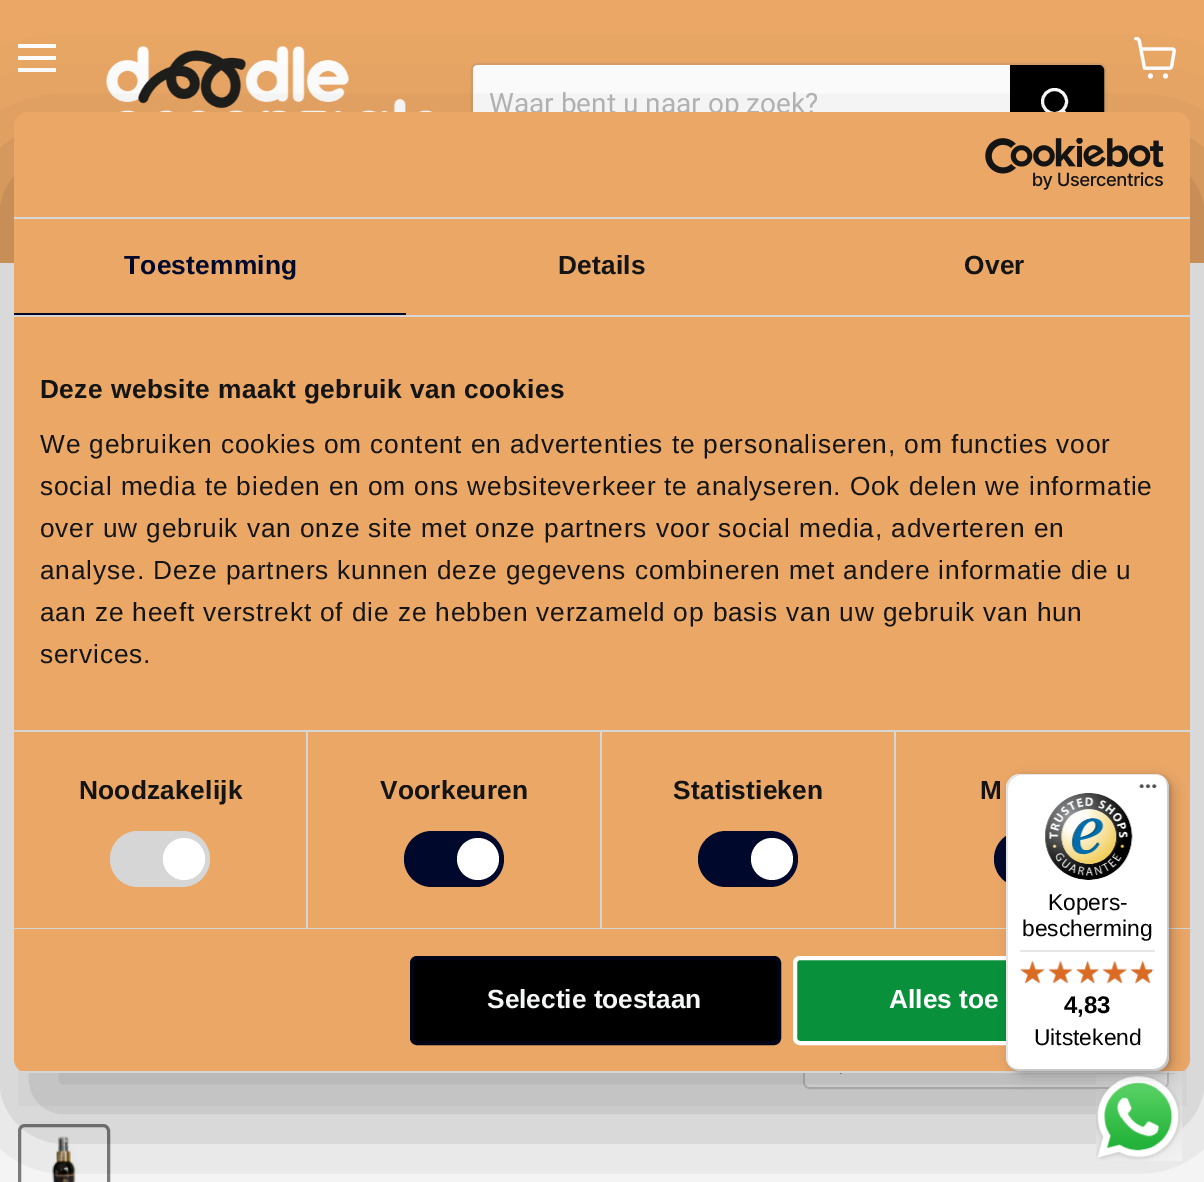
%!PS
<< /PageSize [1204 1182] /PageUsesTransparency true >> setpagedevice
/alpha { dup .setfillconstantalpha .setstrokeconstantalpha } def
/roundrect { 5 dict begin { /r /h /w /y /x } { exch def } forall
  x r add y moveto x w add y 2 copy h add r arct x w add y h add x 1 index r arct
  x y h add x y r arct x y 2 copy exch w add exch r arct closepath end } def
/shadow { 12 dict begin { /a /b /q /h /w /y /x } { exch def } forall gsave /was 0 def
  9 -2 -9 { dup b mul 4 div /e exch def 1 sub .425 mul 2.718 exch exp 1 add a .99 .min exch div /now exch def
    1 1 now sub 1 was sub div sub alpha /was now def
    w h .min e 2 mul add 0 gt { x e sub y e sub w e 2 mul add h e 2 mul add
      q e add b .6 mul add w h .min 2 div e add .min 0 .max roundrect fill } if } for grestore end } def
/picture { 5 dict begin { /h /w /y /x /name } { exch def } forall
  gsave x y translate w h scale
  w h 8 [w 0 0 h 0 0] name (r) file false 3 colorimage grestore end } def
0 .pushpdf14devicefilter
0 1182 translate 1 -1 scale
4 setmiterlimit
1 setgray
0 0 1204 1182 rectfill
0.918 0.655 0.4 setrgbcolor
0 0 1204 263 rectfill
1 setgray
18 44 38 4 rectfill
18 56 38 4 rectfill
18 68 38 4 rectfill
(img1.rgb) 1134 37 42 42 picture
(img2.rgb) 106 46 327 66 picture
gsave
newpath 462 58 moveto 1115 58 lineto 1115 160 lineto 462 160 lineto closepath 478 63 moveto 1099 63 lineto 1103 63 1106 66 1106 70 curveto 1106 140 lineto 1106 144 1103 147 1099 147 curveto 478 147 lineto 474 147 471 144 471 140 curveto 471 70 lineto 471 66 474 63 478 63 curveto closepath eoclip newpath
0.502 setgray
471 67 635 84 7 2.5 0.11 shadow
grestore
0.2 alpha
0.502 setgray
2 setlinewidth
472 64 633 82 6 roundrect stroke
1 alpha
1 setgray
newpath 478 65 moveto 1010 65 lineto 1010 145 lineto 478 145 lineto 475 145 473 143 473 140 curveto 473 70 lineto 473 67 475 65 478 65 curveto closepath fill
/Roboto-Regular [28 0 0 -28 0 0] selectfont
0.722 setgray
489 113 moveto (Waar bent u naar op zoek?) show
0 setgray
newpath 1011 66 moveto 1099 66 lineto 1101 66 1103 68 1103 70 curveto 1103 140 lineto 1103 142 1101 144 1099 144 curveto 1011 144 lineto closepath gsave fill grestore
stroke
1 setgray
3 setlinewidth
1 setlinecap
newpath 1071.5 119.5 moveto 1063 111 lineto stroke
0 setlinecap
newpath 1054.5 101.5 12 0 360 arc closepath stroke
0.973 setgray
18 1067 1169 39 rectfill
0.827 setgray
2 setlinewidth
804 1039 364 49 6 roundrect stroke
0.9 alpha
1 setgray
805 1040 362 47 5 roundrect fill
1 alpha
(img16.rgb) 840 1073 2 1 picture
0.506 setgray
3 setlinewidth
19.5 1125.5 89 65 5.5 roundrect stroke
(img17.rgb) 52 1135 26 47 picture
0 setgray
14 168 1176 961 14 59.5 0.3 shadow
0.918 0.655 0.4 setrgbcolor
14 112 1176 961 14 roundrect fill
0.839 setgray
14 217 1176 2 rectfill
(img3.rgb) 985 138 179 52 picture
14 315 1176 2 rectfill
0 0.031 0.173 setrgbcolor
14 313 392 2 rectfill
/LiberationSans-Bold [26.25 0 0 -26.25 0 0] selectfont
124 274 moveto 0.25 0 (Toestemming) ashow
0.078 setgray
558 274 moveto 0.25 0 (Details) ashow
964 274 moveto 0.25 0 (Over) ashow
0.839 setgray
14 730 1176 2 rectfill
0.078 setgray
40 398 moveto 0.45 0 (Deze website maakt gebruik van cookies) ashow
/LiberationSans-Regular [26.25 0 0 -26.25 0 0] selectfont
40 453 moveto 0.88 0 (We gebruiken cookies om content en advertenties te personaliseren, om functies voor) ashow
40 495 moveto 0.88 0 (social media te bieden en om ons websiteverkeer te analyseren. Ook delen we informatie) ashow
40 537 moveto 0.88 0 (over uw gebruik van onze site met onze partners voor social media, adverteren en) ashow
40 579 moveto 0.88 0 (analyse. Deze partners kunnen deze gegevens combineren met andere informatie die u) ashow
40 621 moveto 0.88 0 (aan ze heeft verstrekt of die ze hebben verzameld op basis van uw gebruik van hun) ashow
40 663 moveto 0.88 0 (services.) ashow
0.839 setgray
14 928 1176 1 rectfill
306 732 2 196 rectfill
/LiberationSans-Bold [26.25 0 0 -26.25 0 0] selectfont
0.078 setgray
79 799 moveto 0.25 0 (Noodzakelijk) ashow
0.839 setgray
110 831 100 56 28 roundrect fill
1 setgray
newpath 184 859 21 0 360 arc closepath fill
0.839 setgray
600 732 2 196 rectfill
0.078 setgray
380 799 moveto 0.25 0 (Voorkeuren) ashow
0 0.031 0.173 setrgbcolor
404 831 100 56 28 roundrect fill
1 setgray
newpath 478 859 21 0 360 arc closepath fill
0.839 setgray
894 732 2 196 rectfill
0.078 setgray
673 799 moveto 0.25 0 (Statistieken) ashow
0 0.031 0.173 setrgbcolor
698 831 100 56 28 roundrect fill
1 setgray
newpath 772 859 21 0 360 arc closepath fill
0.078 setgray
980 799 moveto 0.25 0 (M) ashow
0 0.031 0.173 setrgbcolor
994 831 100 56 28 roundrect fill
gsave
14 112 1176 961 14 roundrect clip newpath
0.839 setgray
14 1071 1176 2 rectfill
grestore
0 setgray
412 958 367 85 5 roundrect gsave fill grestore
0.004 0.02 0.09 setrgbcolor
4 setlinewidth
stroke
0.957 0.969 0.965 setrgbcolor
487 1008 moveto (Selectie toestaan) show
0.031 0.569 0.227 setrgbcolor
795 958 367 85 5 roundrect gsave fill grestore
1 setgray
stroke
889 1008 moveto (Alles toe) show
(img18.rgb) 1096 1074 86 87 picture
0 setgray
1012 779 162 297 14 7 0.15 shadow
1008 775 163 298 14 2 0.15 shadow
1 setgray
1006 774 163 297 14 roundrect fill
0.1 alpha
0 setgray
newpath 1022 775 moveto 1157 775 lineto 1159 775 1162 776 1164 777 curveto 1161 775 1158 774 1155 774 curveto 1020 774 lineto 1012 774 1006 780 1006 788 curveto 1006 1057 lineto 1006 1062 1008 1066 1012 1068 curveto 1009 1066 1008 1062 1008 1059 curveto 1008 789 lineto 1008 782 1014 775 1022 775 curveto closepath fill
0.2 alpha
newpath 1009 1065 moveto 1011 1069 1015 1071 1020 1071 curveto 1155 1071 lineto 1163 1071 1169 1065 1169 1057 curveto 1169 788 lineto 1169 784 1167 780 1164 778 curveto 1166 780 1167 783 1167 786 curveto 1167 1055 lineto 1167 1063 1161 1069 1153 1069 curveto 1018 1069 lineto 1015 1069 1011 1068 1009 1065 curveto closepath fill
0.196 setgray
newpath 1011 1067 moveto 1013 1070 1016 1071 1020 1071 curveto 1155 1071 lineto 1163 1071 1169 1065 1169 1057 curveto 1169 788 lineto 1169 785 1168 782 1167 780 curveto 1168 782 1168 784 1168 786 curveto 1168 1056 lineto 1168 1064 1162 1070 1154 1070 curveto 1019 1070 lineto 1016 1070 1013 1069 1011 1067 curveto closepath fill
0.3 alpha
1 setgray
newpath 1009 1066 moveto 1011 1069 1015 1071 1020 1071 curveto 1155 1071 lineto 1163 1071 1169 1065 1169 1057 curveto 1169 788 lineto 1169 784 1168 781 1165 779 curveto 1167 781 1168 784 1168 787 curveto 1168 1056 lineto 1168 1064 1162 1070 1154 1070 curveto 1019 1070 lineto 1015 1070 1012 1068 1009 1066 curveto closepath fill
1 alpha
(img4.rgb) 1139 784 18 4 picture
(img5.rgb) 1045 793 88 87 picture
/LiberationSans-Regular [22.75 0 0 -22.75 0 0] selectfont
0 setgray
1048 910 moveto (Kopers-) show
1022 936 moveto (bescherming) show
0.898 setgray
1020 950 135 2 rectfill
(img11.rgb) 1020 961 25 22 picture
(img6.rgb) 1020 960 25 24 picture
(img12.rgb) 1049 961 23 22 picture
(img7.rgb) 1048 960 25 24 picture
(img13.rgb) 1076 961 23 22 picture
(img8.rgb) 1076 960 23 24 picture
(img14.rgb) 1103 961 24 22 picture
(img9.rgb) 1102 960 25 24 picture
(img15.rgb) 1131 961 24 22 picture
(img10.rgb) 1130 960 22 24 picture
/LiberationSans-Bold [24 0 0 -24 0 0] selectfont
0 setgray
1064 1013 moveto (4,83) show
/LiberationSans-Regular [22.75 0 0 -22.75 0 0] selectfont
1034 1045 moveto (Uitstekend) show
.poppdf14devicefilter showpage
